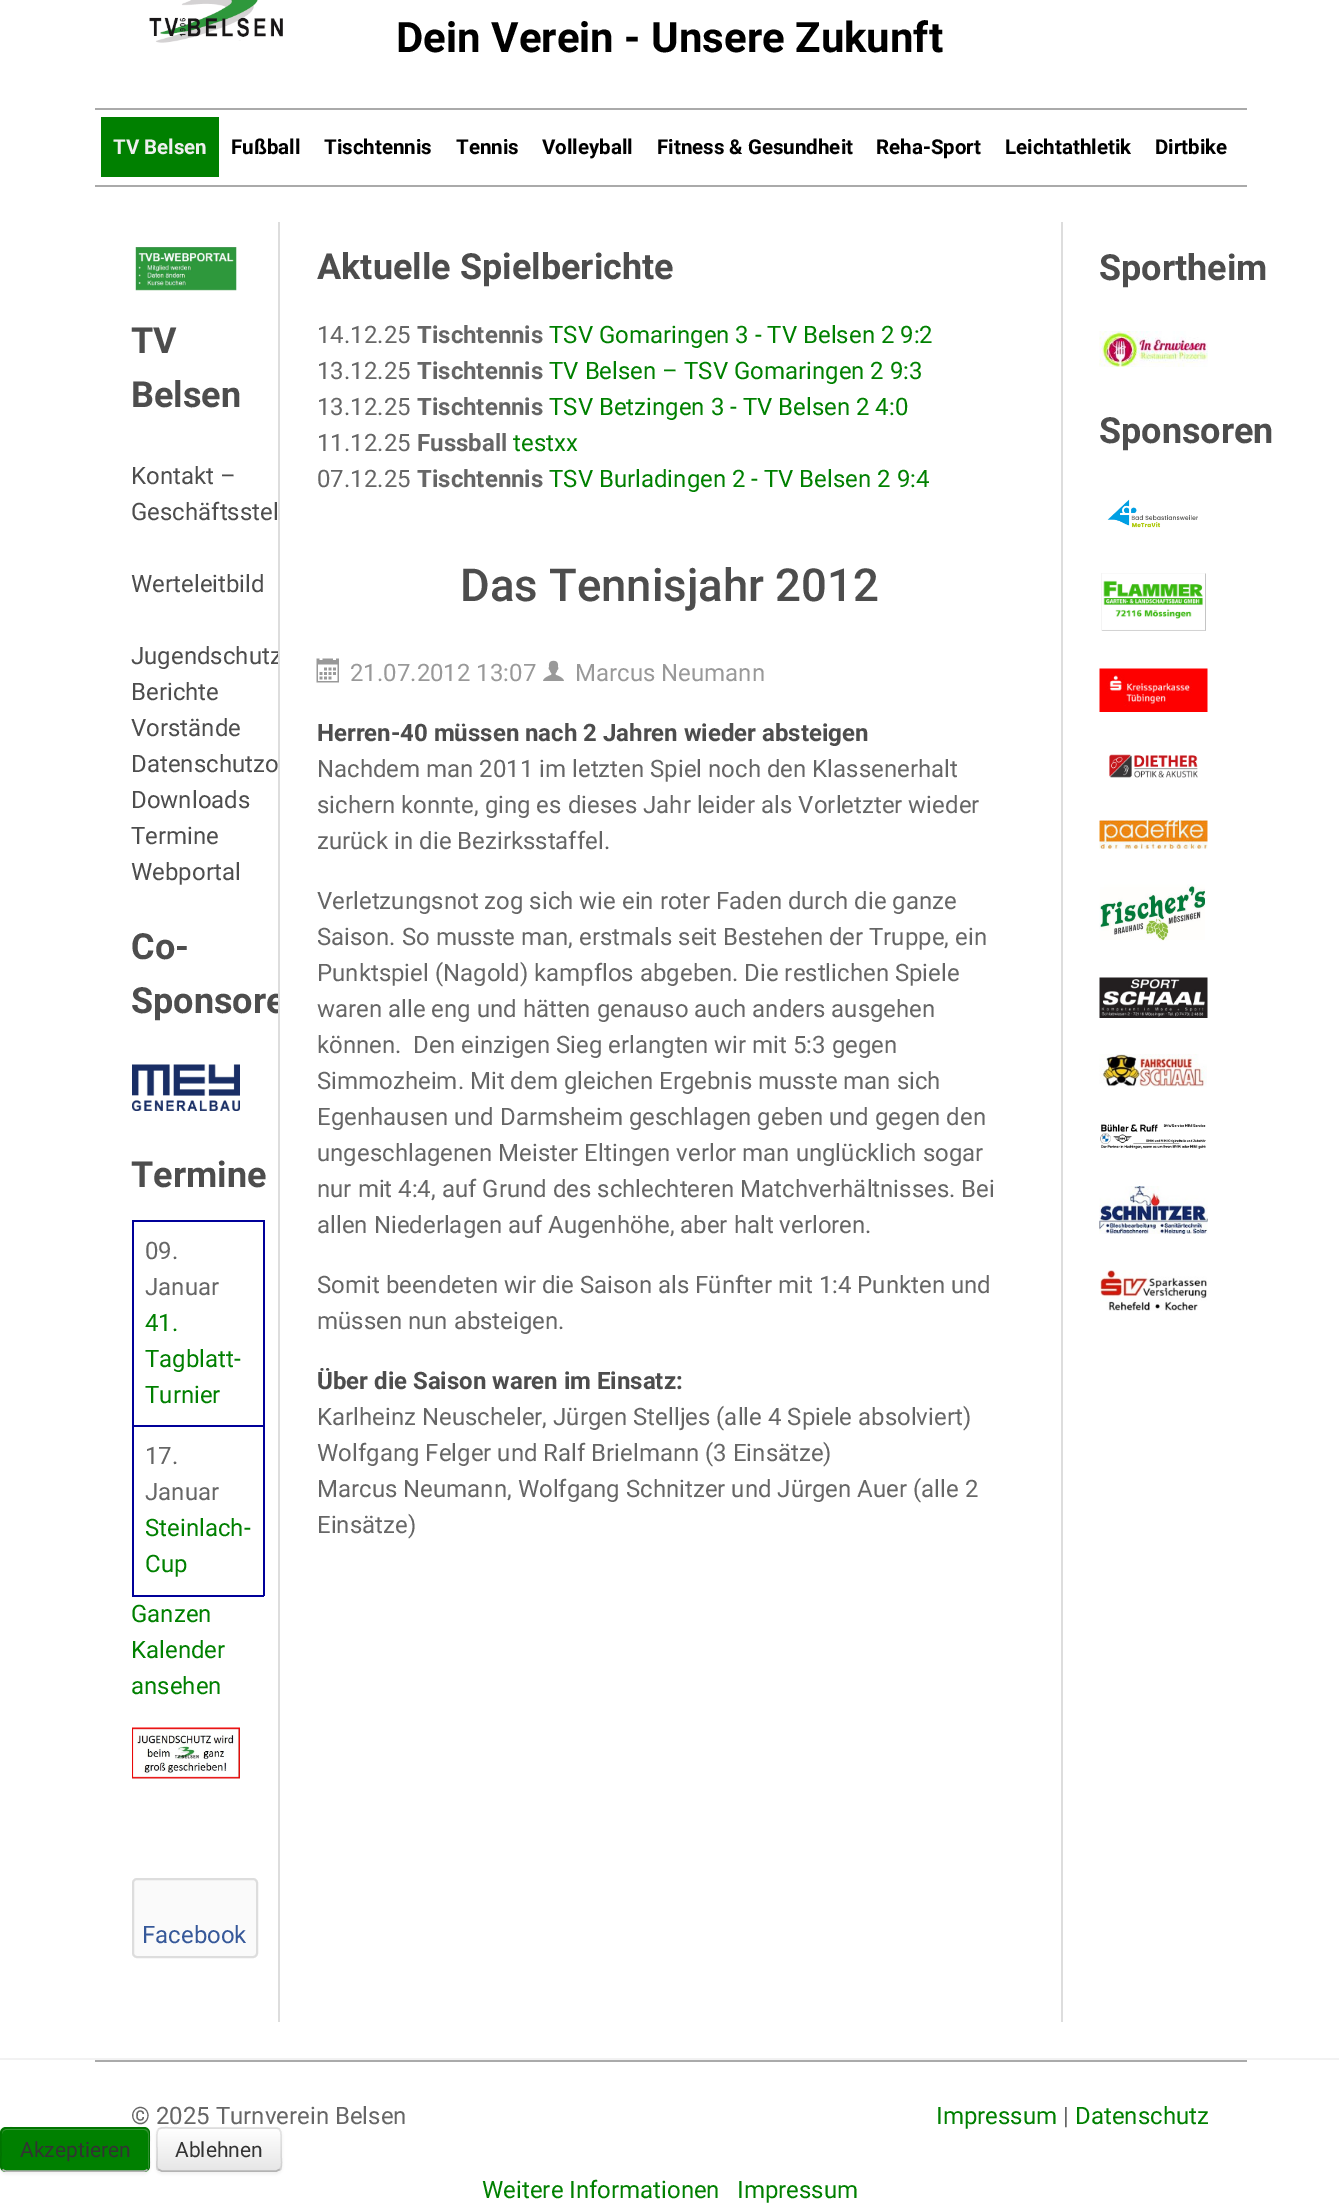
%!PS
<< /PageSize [1339 2207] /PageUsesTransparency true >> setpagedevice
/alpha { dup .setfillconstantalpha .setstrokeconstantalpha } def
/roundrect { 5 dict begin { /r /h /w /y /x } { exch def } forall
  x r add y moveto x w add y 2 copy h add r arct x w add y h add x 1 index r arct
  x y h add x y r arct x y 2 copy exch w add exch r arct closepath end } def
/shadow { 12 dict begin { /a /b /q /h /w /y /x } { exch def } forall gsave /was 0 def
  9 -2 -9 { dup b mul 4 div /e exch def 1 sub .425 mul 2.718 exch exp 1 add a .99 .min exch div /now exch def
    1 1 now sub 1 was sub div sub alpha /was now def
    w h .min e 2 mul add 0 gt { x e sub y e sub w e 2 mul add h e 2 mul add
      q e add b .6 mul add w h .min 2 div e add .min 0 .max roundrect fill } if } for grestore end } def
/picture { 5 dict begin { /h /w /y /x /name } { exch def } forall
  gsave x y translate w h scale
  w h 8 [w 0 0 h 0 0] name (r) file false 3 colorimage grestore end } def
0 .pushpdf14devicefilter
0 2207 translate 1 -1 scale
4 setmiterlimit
1 setgray
0 0 1339 2207 rectfill
(img1.rgb) 149 0 134 43 picture
/Roboto-Bold [42 0 0 -42 0 0] selectfont
0 setgray
396 52 moveto (Dein Verein - Unsere Zukunft) show
0.667 setgray
95 108 1152 2 rectfill
95 185 1152 2 rectfill
0 0.502 0 setrgbcolor
101 117 118 60 rectfill
/Roboto-Bold [20.5 0 0 -20.5 0 0] selectfont
0.933 setgray
113 154 moveto (TV Belsen) show
0 setgray
231 154 moveto (Fußball) show
324 154 moveto (Tischtennis) show
456 154 moveto (Tennis) show
542 154 moveto (Volleyball) show
657 154 moveto (Fitness & Gesundheit) show
876 154 moveto (Reha-Sport) show
1005 154 moveto (Leichtathletik) show
1155 154 moveto (Dirtbike) show
(img2.rgb) 135 247 102 44 picture
/Roboto-Bold [36 0 0 -36 0 0] selectfont
0.302 setgray
131 353 moveto (TV) show
131 407 moveto (Belsen) show
/Roboto-Regular [24 0 0 -24 0 0] selectfont
131 484 moveto (Kontakt –) show
131 520 moveto (Geschäftsstel) show
131 592 moveto (Werteleitbild) show
131 664 moveto (Jugendschutz) show
131 700 moveto (Berichte) show
131 736 moveto (Vorstände) show
131 772 moveto (Datenschutzo) show
131 808 moveto (Downloads) show
131 844 moveto (Termine) show
131 880 moveto (Webportal) show
/Roboto-Bold [36 0 0 -36 0 0] selectfont
131 959 moveto (Co-) show
131 1013 moveto (Sponsore) show
(img3.rgb) 132 1064 108 47 picture
131 1187 moveto (Termine) show
0 0 0.6 setrgbcolor
132 1220 132 2 rectfill
132 1425 132 2 rectfill
263 1425 2 171 rectfill
263 1220 2 207 rectfill
132 1595 132 2 rectfill
132 1425 2 171 rectfill
132 1220 2 207 rectfill
/Roboto-Regular [24 0 0 -24 0 0] selectfont
0.4 setgray
145 1259 moveto (09.) show
145 1295 moveto (Januar) show
0 0.502 0 setrgbcolor
145 1331 moveto (41.) show
145 1367 moveto (Tagblatt-) show
145 1403 moveto (Turnier) show
0.4 setgray
145 1464 moveto (17.) show
145 1500 moveto (Januar) show
0 0.502 0 setrgbcolor
145 1536 moveto (Steinlach-) show
145 1572 moveto (Cup) show
131 1622 moveto (Ganzen) show
131 1658 moveto (Kalender) show
131 1694 moveto (ansehen) show
(img4.rgb) 132 1727 108 52 picture
0.98 setgray
133 1879 124 78 4 roundrect gsave fill grestore
0.867 setgray
2 setlinewidth
stroke
0.212 0.345 0.6 setrgbcolor
142 1943 moveto (Facebook) show
1 setgray
280 651 5 362 rectfill
0.867 setgray
1061 222 2 1800 rectfill
278 222 2 1800 rectfill
/Roboto-Bold [36 0 0 -36 0 0] selectfont
0.302 setgray
317 279 moveto (Aktuelle Spielberichte) show
/Roboto-Regular [24 0 0 -24 0 0] selectfont
0.4 setgray
317 343 moveto (14.12.25) show
/Roboto-Bold [24 0 0 -24 0 0] selectfont
417 343 moveto (Tischtennis) show
/Roboto-Regular [24 0 0 -24 0 0] selectfont
0 0.502 0 setrgbcolor
549 343 moveto (TSV Gomaringen 3 - TV Belsen 2 9:2) show
0.4 setgray
317 379 moveto (13.12.25) show
/Roboto-Bold [24 0 0 -24 0 0] selectfont
417 379 moveto (Tischtennis) show
/Roboto-Regular [24 0 0 -24 0 0] selectfont
0 0.502 0 setrgbcolor
549 379 moveto (TV Belsen – TSV Gomaringen 2 9:3) show
0.4 setgray
317 415 moveto (13.12.25) show
/Roboto-Bold [24 0 0 -24 0 0] selectfont
417 415 moveto (Tischtennis) show
/Roboto-Regular [24 0 0 -24 0 0] selectfont
0 0.502 0 setrgbcolor
549 415 moveto (TSV Betzingen 3 - TV Belsen 2 4:0) show
0.4 setgray
317 451 moveto (11.12.25) show
/Roboto-Bold [24 0 0 -24 0 0] selectfont
417 451 moveto (Fussball) show
/Roboto-Regular [24 0 0 -24 0 0] selectfont
0 0.502 0 setrgbcolor
513 451 moveto (testxx) show
0.4 setgray
317 487 moveto (07.12.25) show
/Roboto-Bold [24 0 0 -24 0 0] selectfont
417 487 moveto (Tischtennis) show
/Roboto-Regular [24 0 0 -24 0 0] selectfont
0 0.502 0 setrgbcolor
549 487 moveto (TSV Burladingen 2 - TV Belsen 2 9:4) show
/Roboto-Medium [45.5 0 0 -45.5 0 0] selectfont
0.302 setgray
460 601 moveto (Das Tennisjahr 2012) show
(img5.rgb) 316 658 23 25 picture
/Roboto-Regular [24 0 0 -24 0 0] selectfont
0.6 setgray
350 681 moveto (21.07.2012 13:07) show
(img6.rgb) 543 660 21 21 picture
575 681 moveto (Marcus Neumann) show
/Roboto-Bold [24 0 0 -24 0 0] selectfont
0.302 setgray
317 741 moveto (Herren-40 müssen nach 2 Jahren wieder absteigen) show
/Roboto-Regular [24 0 0 -24 0 0] selectfont
0.4 setgray
317 777 moveto (Nachdem man 2011 im letzten Spiel noch den Klassenerhalt) show
317 813 moveto (sichern konnte, ging es dieses Jahr leider als Vorletzter wieder) show
317 849 moveto (zurück in die Bezirksstaffel.) show
317 909 moveto (Verletzungsnot zog sich wie ein roter Faden durch die ganze) show
317 945 moveto (Saison. So musste man, erstmals seit Bestehen der Truppe, ein) show
317 981 moveto (Punktspiel \(Nagold\) kampflos abgeben. Die restlichen Spiele) show
317 1017 moveto (waren alle eng und hätten genauso auch anders ausgehen) show
317 1053 moveto (können.  Den einzigen Sieg erlangten wir mit 5:3 gegen) show
317 1089 moveto (Simmozheim. Mit dem gleichen Ergebnis musste man sich) show
317 1125 moveto (Egenhausen und Darmsheim geschlagen geben und gegen den) show
317 1161 moveto (ungeschlagenen Meister Eltingen verlor man unglücklich sogar) show
317 1197 moveto (nur mit 4:4, auf Grund des schlechteren Matchverhältnisses. Bei) show
317 1233 moveto (allen Niederlagen auf Augenhöhe, aber halt verloren.) show
317 1293 moveto (Somit beendeten wir die Saison als Fünfter mit 1:4 Punkten und) show
317 1329 moveto (müssen nun absteigen.) show
/Roboto-Bold [24 0 0 -24 0 0] selectfont
0.302 setgray
317 1389 moveto (Über die Saison waren im Einsatz:) show
/Roboto-Regular [24 0 0 -24 0 0] selectfont
0.4 setgray
317 1425 moveto (Karlheinz Neuscheler, Jürgen Stelljes \(alle 4 Spiele absolviert\)) show
317 1461 moveto (Wolfgang Felger und Ralf Brielmann \(3 Einsätze\)) show
317 1497 moveto (Marcus Neumann, Wolfgang Schnitzer und Jürgen Auer \(alle 2) show
317 1533 moveto (Einsätze\)) show
/Roboto-Bold [36 0 0 -36 0 0] selectfont
0.302 setgray
1099 280 moveto (Sportheim) show
(img7.rgb) 1099 331 109 36 picture
1099 443 moveto (Sponsoren) show
(img8.rgb) 1107 499 91 29 picture
(img9.rgb) 1101 573 105 58 picture
(img10.rgb) 1099 668 109 44 picture
(img11.rgb) 1109 754 89 24 picture
(img12.rgb) 1099 820 109 29 picture
(img13.rgb) 1099 884 107 57 picture
(img14.rgb) 1099 977 109 41 picture
(img15.rgb) 1099 1054 108 33 picture
(img16.rgb) 1100 1123 106 26 picture
(img17.rgb) 1099 1186 109 48 picture
(img18.rgb) 1100 1270 107 41 picture
0.949 setgray
0 2058 1339 2 rectfill
0.667 setgray
95 2060 1152 2 rectfill
/Roboto-Regular [24 0 0 -24 0 0] selectfont
0.4 setgray
131 2124 moveto (© 2025 Turnverein Belsen) show
0 0.502 0 setrgbcolor
936 2124 moveto (Impressum) show
0.4 setgray
1063 2124 moveto (|) show
0 0.502 0 setrgbcolor
1075 2124 moveto (Datenschutz) show
0 setgray
0 2129 150 45 6 1.5 0.05 shadow
0 0.502 0 setrgbcolor
0 2127 150 45 6 roundrect fill
0.2 0.6 0.2 setrgbcolor
newpath 6 2130 moveto 144 2130 lineto 146 2130 148 2132 148 2134 curveto 148 2169 lineto 149 2168 149 2167 149 2166 curveto 149 2134 lineto 149 2131 147 2129 144 2129 curveto 7 2129 lineto 4 2129 2 2131 2 2134 curveto 2 2132 4 2130 6 2130 curveto closepath fill
0.702 setgray
1.5 setlinewidth
newpath 147.5 2169.5 moveto 146.5 2170.5 145.5 2171 144 2171 curveto 6 2171 lineto 4.5 2171 3.5 2170.5 2.5 2169.5 curveto stroke
0.1 alpha
0 setgray
newpath 2.5 2169.5 moveto -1 2166.5 1 2158.5 1 2155 curveto 1 2123 -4.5 2128 29 2128 curveto 121 2128 lineto 154.5 2128 149 2123 149 2155 curveto 149 2158.5 151 2166.5 147.5 2169.5 curveto stroke
/Roboto-Regular [21 0 0 -21 0 0] selectfont
1 alpha
0.2 setgray
20 2157 moveto (Akzeptieren) show
0 setgray
156 2129 126 45 6 1.5 0.05 shadow
0.961 setgray
156 2127 126 45 6 roundrect fill
gsave
156 2127 126 45 6 roundrect clip newpath
gsave newpath 156 2129 moveto 282 2129 lineto 282 2171 lineto 156 2171 lineto closepath clip newpath
<< /ShadingType 2 /ColorSpace /DeviceRGB /Coords [219 2129 219 2171] /Extend [true true] /Function << /FunctionType 2 /Domain [0 1] /C0 [1 1 1] /C1 [0.902 0.902 0.902] /N 1 >> >> shfill grestore
grestore
0.2 alpha
1 setgray
newpath 162 2130 moveto 257 2130 lineto 281 2130 280 2125 280 2145 curveto 280 2169 lineto 281 2168 281 2167 281 2166 curveto 281 2134 lineto 281 2131 279 2129 276 2129 curveto 163 2129 lineto 160 2129 158 2131 158 2134 curveto 158 2132 160 2130 162 2130 curveto closepath fill
1 alpha
0.702 setgray
newpath 279.5 2169.5 moveto 276.5 2171 lineto 161.5 2171 lineto 158.5 2169.5 lineto stroke
0.1 alpha
0 setgray
newpath 158.5 2169.5 moveto 156 2167.5 157 2163.5 157 2160.5 curveto 157 2149.5 lineto 157 2123.5 153.5 2128 181 2128 curveto 276 2128 lineto 282 2128 281 2134.5 281 2138.5 curveto 281 2155 lineto 281 2158.5 283 2166.5 279.5 2169.5 curveto stroke
1 alpha
0.2 setgray
175 2157 moveto (Ablehnen) show
/Roboto-Regular [24 0 0 -24 0 0] selectfont
0 0.502 0 setrgbcolor
482 2198 moveto (Weitere Informationen) show
737 2198 moveto (Impressum) show
.poppdf14devicefilter showpage
